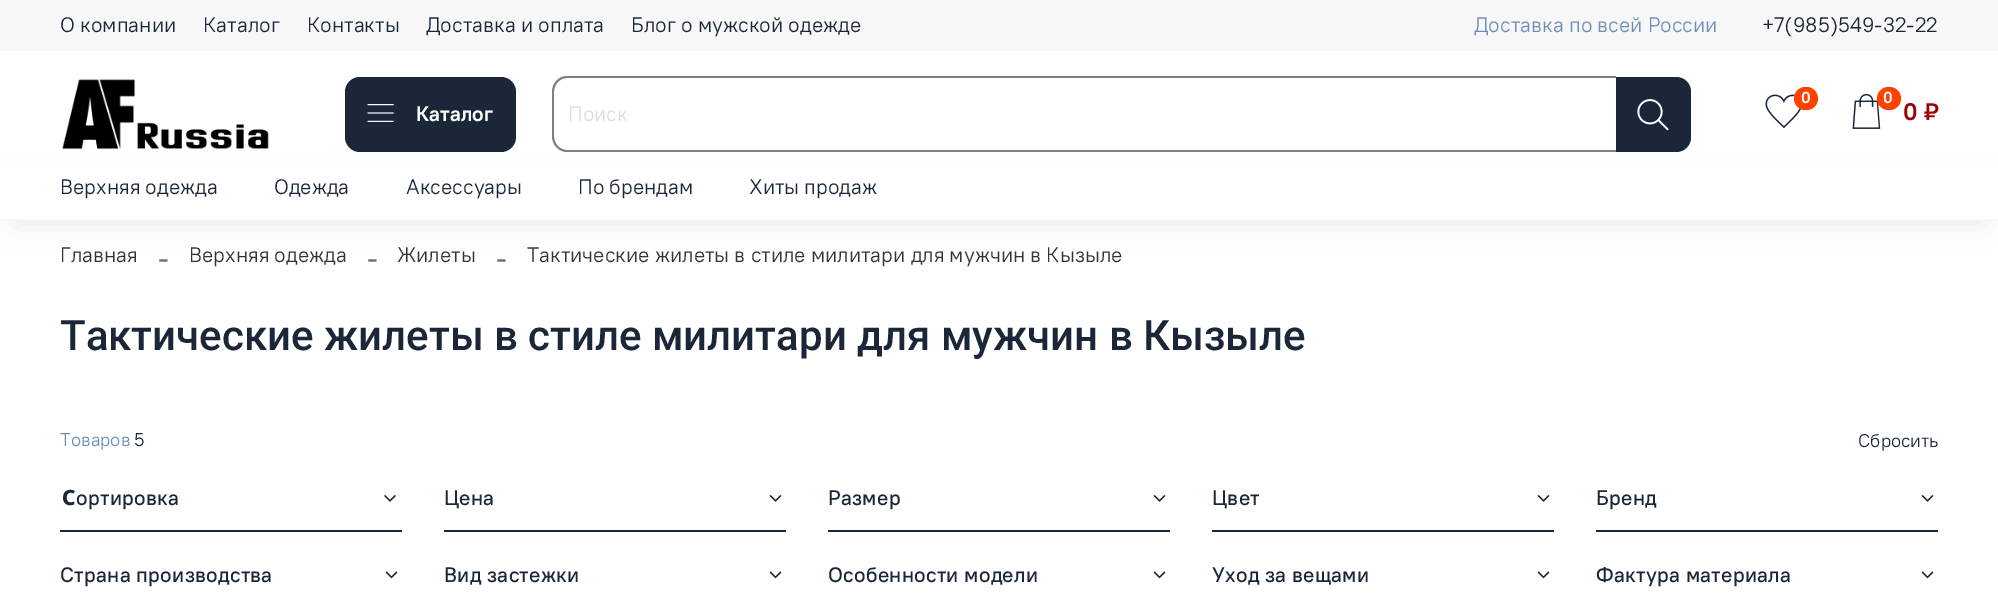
%!PS
<< /PageSize [1998 595] /PageUsesTransparency true >> setpagedevice
/alpha { dup .setfillconstantalpha .setstrokeconstantalpha } def
/roundrect { 5 dict begin { /r /h /w /y /x } { exch def } forall
  x r add y moveto x w add y 2 copy h add r arct x w add y h add x 1 index r arct
  x y h add x y r arct x y 2 copy exch w add exch r arct closepath end } def
/shadow { 12 dict begin { /a /b /q /h /w /y /x } { exch def } forall gsave /was 0 def
  9 -2 -9 { dup b mul 4 div /e exch def 1 sub .425 mul 2.718 exch exp 1 add a .99 .min exch div /now exch def
    1 1 now sub 1 was sub div sub alpha /was now def
    w h .min e 2 mul add 0 gt { x e sub y e sub w e 2 mul add h e 2 mul add
      q e add b .6 mul add w h .min 2 div e add .min 0 .max roundrect fill } if } for grestore end } def
/picture { 5 dict begin { /h /w /y /x /name } { exch def } forall
  gsave x y translate w h scale
  w h 8 [w 0 0 h 0 0] name (r) file false 3 colorimage grestore end } def
0 .pushpdf14devicefilter
0 595 translate 1 -1 scale
4 setmiterlimit
1 setgray
0 0 1998 595 rectfill
0.969 setgray
0 0 1998 51 rectfill
/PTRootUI-Regular [21 0 0 -21 0 0] selectfont
0.106 0.153 0.22 setrgbcolor
60 32 moveto (О компании) show
203 32 moveto (Каталог) show
307 32 moveto (Контакты) show
426 32 moveto (Доставка и оплата) show
631 32 moveto (Блог о мужской одежде) show
0.431 0.557 0.725 setrgbcolor
1474 32 moveto (Доставка по всей России) show
0.106 0.153 0.22 setrgbcolor
1762 32 moveto (+7\(985\)549-32-22) show
(img1.rgb) 62 79 207 71 picture
345 77 171 75 15 roundrect fill
(img2.rgb) 367 104 27 18 picture
/PTRootUI-Bold [21 0 0 -21 0 0] selectfont
1 setgray
416 121 moveto (Каталог) show
0.502 setgray
newpath 567 76 moveto 1616 76 lineto 1616 152 lineto 567 152 lineto 559 152 552 145 552 136 curveto 552 92 lineto 552 83 559 76 567 76 curveto closepath 567 78 moveto 1616 78 lineto 1616 150 lineto 567 150 lineto 560 150 554 144 554 136 curveto 554 92 lineto 554 84 560 78 567 78 curveto closepath eofill
/PTRootUI-Regular [21 0 0 -21 0 0] selectfont
0.867 setgray
568 121 moveto (Поиск) show
0.106 0.153 0.22 setrgbcolor
newpath 1616 77 moveto 1676 77 lineto 1684.5 77 1691 83.5 1691 92 curveto 1691 137 lineto 1691 145.5 1684.5 152 1676 152 curveto 1616 152 lineto closepath fill
(img3.rgb) 1637 99 32 32 picture
(img4.rgb) 1765 94 36 35 picture
1 0.255 0 setrgbcolor
1794 87 24 23 11.5 roundrect fill
/PTRootUI-Bold [16 0 0 -16 0 0] selectfont
1 setgray
1801 103 moveto (0) show
(img5.rgb) 1852 93 29 36 picture
1 0.255 0 setrgbcolor
1877 87 24 23 11.5 roundrect fill
1 setgray
1883 103 moveto (0) show
/PTRootUI-Bold [24 0 0 -24 0 0] selectfont
0.612 0.016 0.016 setrgbcolor
1903 120 moveto (0 ₽) show
0 setgray
15 186 1968 35 0 15 0.1 shadow
1 setgray
0 167 1998 52 rectfill
0.969 setgray
0 219 1998 2 rectfill
/PTRootUI-Regular [21 0 0 -21 0 0] selectfont
0.106 0.153 0.22 setrgbcolor
60 194 moveto (Верхняя одежда) show
274 194 moveto (Одежда) show
406 194 moveto (Аксессуары) show
578 194 moveto (По брендам) show
749 194 moveto (Хиты продаж) show
0.2 setgray
60 262 moveto (Главная) show
/LiberationSerif-Regular [32 0 0 -32 0 0] selectfont
0.439 setgray
158 268 moveto (-) show
/PTRootUI-Regular [21 0 0 -21 0 0] selectfont
0.2 setgray
189 262 moveto (Верхняя одежда) show
/LiberationSerif-Regular [32 0 0 -32 0 0] selectfont
0.439 setgray
367 268 moveto (-) show
/PTRootUI-Regular [21 0 0 -21 0 0] selectfont
0.2 setgray
397 262 moveto (Жилеты) show
/LiberationSerif-Regular [32 0 0 -32 0 0] selectfont
0.439 setgray
496 268 moveto (-) show
/PTRootUI-Regular [21 0 0 -21 0 0] selectfont
0.2 setgray
527 262 moveto (Тактические жилеты в стиле милитари для мужчин в Кызыле) show
/Roboto-Medium [42 0 0 -42 0 0] selectfont
0.106 0.153 0.22 setrgbcolor
60 350 moveto (Тактические жилеты в стиле милитари для мужчин в Кызыле) show
/PTRootUI-Regular [18.5 0 0 -18.5 0 0] selectfont
0.431 0.557 0.725 setrgbcolor
60 446 moveto (Товаров) show
0.106 0.153 0.22 setrgbcolor
134 446 moveto (5) show
1858 447 moveto (Сбросить) show
60 530 342 2 rectfill
/NotoSans-ExtraBold [21 0 0 -21 0 0] selectfont
62 505 moveto 0.25 0 (С) ashow
/PTRootUI-Medium [21 0 0 -21 0 0] selectfont
76 505 moveto 0.25 0 (ортировка) ashow
(img6.rgb) 384 495 12 7 picture
444 530 342 2 rectfill
444 505 moveto 0.25 0 (Цена) ashow
(img7.rgb) 769 495 13 7 picture
828 530 342 2 rectfill
828 505 moveto 0.25 0 (Размер) ashow
(img7.rgb) 1153 495 13 7 picture
1212 530 342 2 rectfill
1212 505 moveto 0.25 0 (Цвет) ashow
(img7.rgb) 1537 495 13 7 picture
1596 530 342 2 rectfill
1596 505 moveto 0.25 0 (Бренд) ashow
(img7.rgb) 1921 495 13 7 picture
60 582 moveto 0.25 0 (Страна производства) ashow
(img8.rgb) 385 571 13 8 picture
444 582 moveto 0.25 0 (Вид застежки) ashow
(img8.rgb) 769 571 13 8 picture
828 582 moveto 0.25 0 (Особенности модели) ashow
(img8.rgb) 1153 571 13 8 picture
1212 582 moveto 0.25 0 (Уход за вещами) ashow
(img8.rgb) 1537 571 13 8 picture
1596 582 moveto 0.25 0 (Фактура материала) ashow
(img8.rgb) 1921 571 13 8 picture
.poppdf14devicefilter showpage
